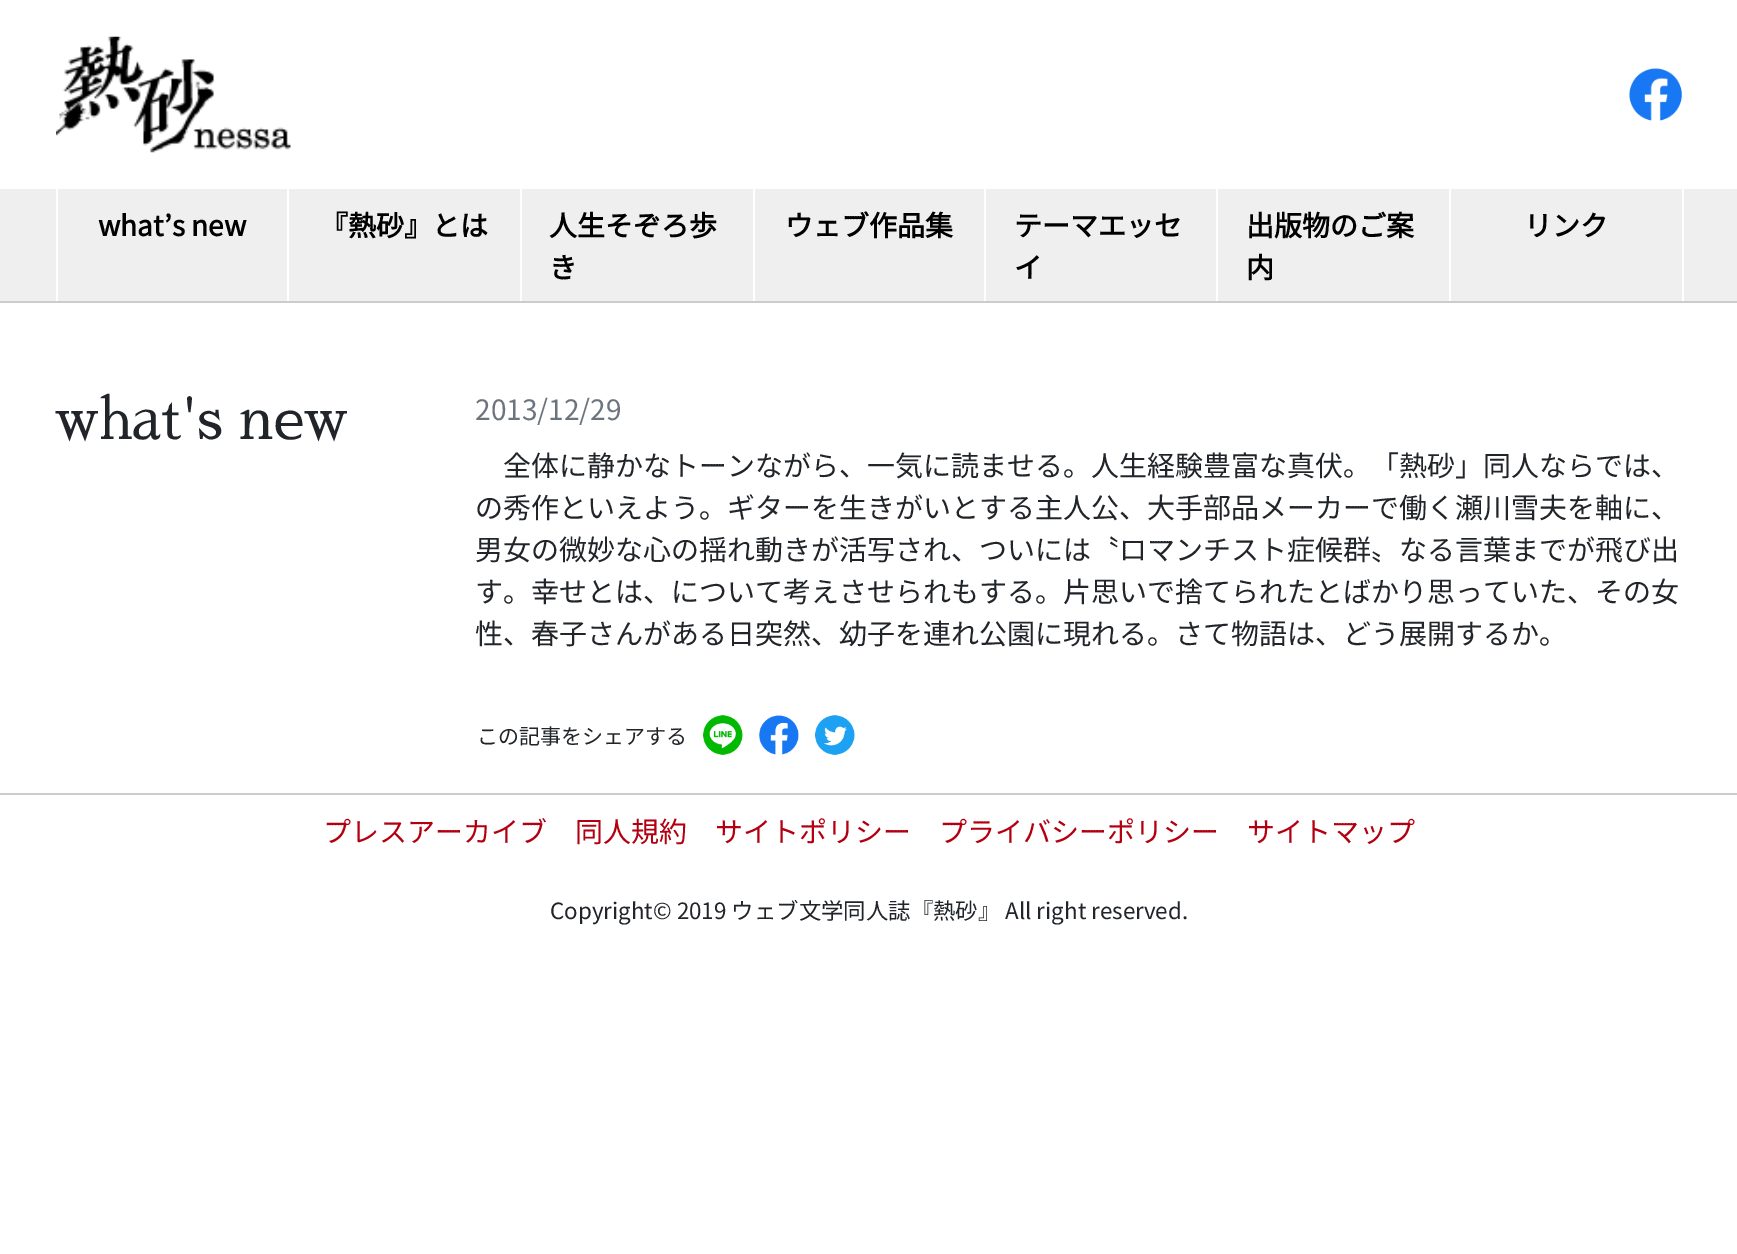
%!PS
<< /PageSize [1737 1254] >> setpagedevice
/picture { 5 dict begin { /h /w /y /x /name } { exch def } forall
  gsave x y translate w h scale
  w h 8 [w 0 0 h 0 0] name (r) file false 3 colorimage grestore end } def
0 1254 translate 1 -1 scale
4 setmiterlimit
1 setgray
0 0 1737 1254 rectfill
(img1.rgb) 56 36 235 117 picture
(img2.rgb) 1629 68 53 53 picture
0.937 setgray
0 189 1737 112 rectfill
0.8 setgray
0 301 1737 2 rectfill
1 setgray
56 189 2 112 rectfill
/NotoSansJP-Bold [28 0 0 -28 0 0] selectfont
0 setgray
98 236 moveto (what’s new) show
1 setgray
287 189 2 112 rectfill
0 setgray
320 236 moveto (『熱砂』とは) show
1 setgray
520 189 2 112 rectfill
0 setgray
549 236 moveto (人生そぞろ歩) show
549 278 moveto (き) show
1 setgray
753 189 2 112 rectfill
0 setgray
785 236 moveto (ウェブ作品集) show
1 setgray
984 189 2 112 rectfill
0 setgray
1014 236 moveto (テーマエッセ) show
1014 278 moveto (イ) show
1 setgray
1216 189 2 112 rectfill
0 setgray
1246 236 moveto (出版物のご案) show
1246 278 moveto (内) show
1 setgray
1682 189 2 112 rectfill
1449 189 2 112 rectfill
0 setgray
1524 236 moveto (リンク) show
/SawarabiMincho-Regular [56 0 0 -56 0 0] selectfont
0.129 0.145 0.161 setrgbcolor
55 439 moveto (what's new) show
/NotoSansJP-Thin [28 0 0 -28 0 0] selectfont
0.424 0.459 0.49 setrgbcolor
475 420 moveto (2013/12/29) show
0.129 0.145 0.161 setrgbcolor
503 476 moveto (全体に静かなトーンながら、一気に読ませる。人生経験豊富な真伏。「熱砂」同人ならでは、) show
475 518 moveto (の秀作といえよう。ギターを生きがいとする主人公、大手部品メーカーで働く瀬川雪夫を軸に、) show
475 560 moveto (男女の微妙な心の揺れ動きが活写され、ついには〝ロマンチスト症候群〟なる言葉までが飛び出) show
475 602 moveto (す。幸せとは、について考えさせられもする。片思いで捨てられたとばかり思っていた、その女) show
475 644 moveto (性、春子さんがある日突然、幼子を連れ公園に現れる。さて物語は、どう展開するか。) show
/NotoSansJP-Thin [21 0 0 -21 0 0] selectfont
477 744 moveto (この記事をシェアする) show
(img3.rgb) 703 715 40 40 picture
(img4.rgb) 759 715 40 40 picture
(img5.rgb) 815 715 40 40 picture
0.8 setgray
0 793 1737 2 rectfill
/NotoSansJP-Thin [28 0 0 -28 0 0] selectfont
0.698 0 0.063 setrgbcolor
323 842 moveto (プレスアーカイブ) show
575 842 moveto (同人規約) show
715 842 moveto (サイトポリシー) show
939 842 moveto (プライバシーポリシー) show
1247 842 moveto (サイトマップ) show
/NotoSansJP-Thin [22.4 0 0 -22.4 0 0] selectfont
0.129 0.145 0.161 setrgbcolor
550 919 moveto (Copyright© 2019 ウェブ文学同人誌『熱砂』 All right reserved.) show
showpage
